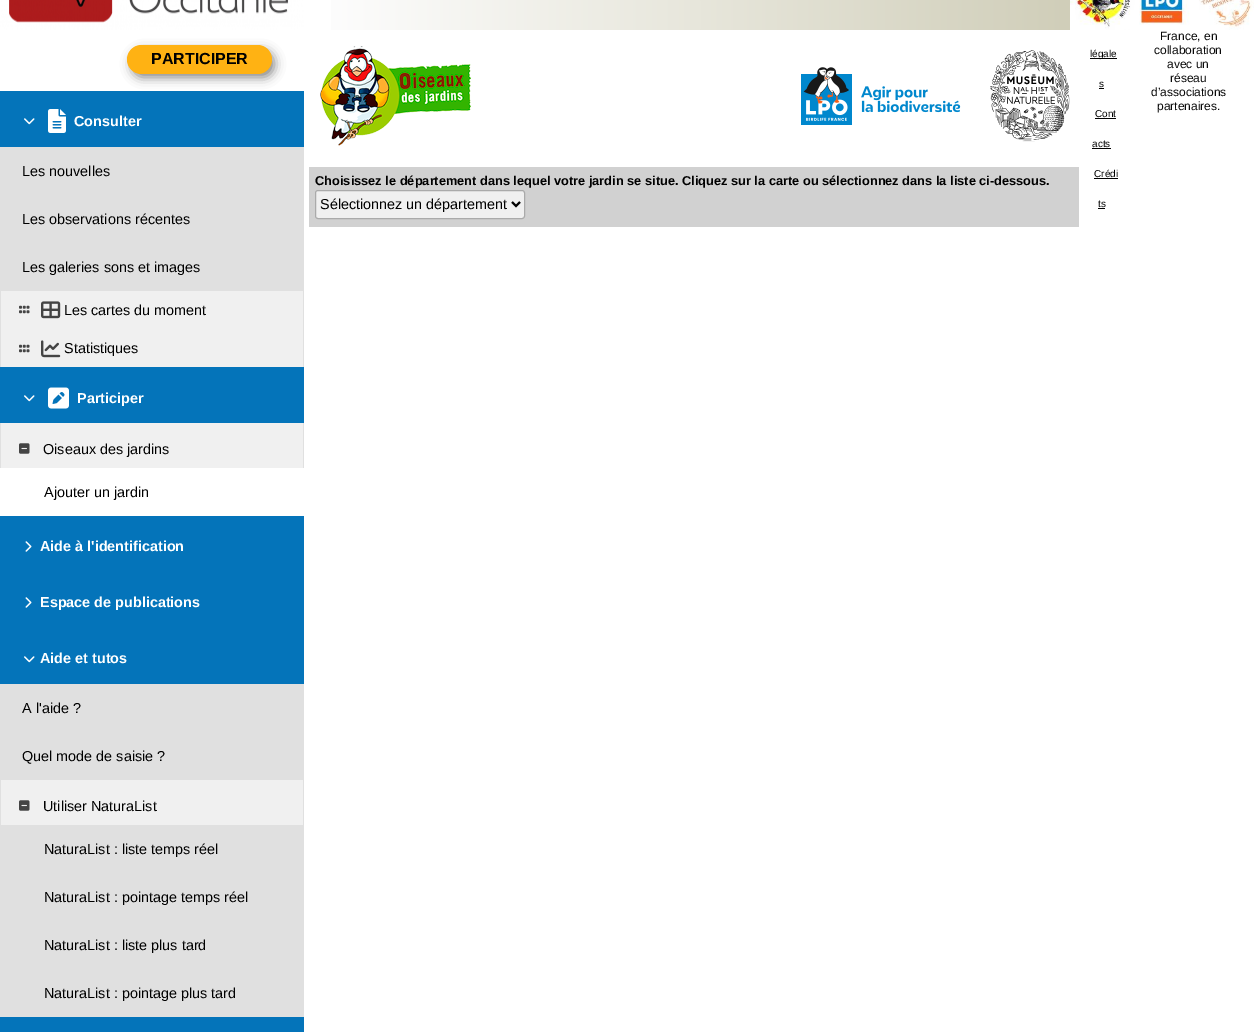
%!PS
<< /PageSize [1259 1032] /PageUsesTransparency true >> setpagedevice
/alpha { dup .setfillconstantalpha .setstrokeconstantalpha } def
/roundrect { 5 dict begin { /r /h /w /y /x } { exch def } forall
  x r add y moveto x w add y 2 copy h add r arct x w add y h add x 1 index r arct
  x y h add x y r arct x y 2 copy exch w add exch r arct closepath end } def
/shadow { 12 dict begin { /a /b /q /h /w /y /x } { exch def } forall gsave /was 0 def
  9 -2 -9 { dup b mul 4 div /e exch def 1 sub .425 mul 2.718 exch exp 1 add a .99 .min exch div /now exch def
    1 1 now sub 1 was sub div sub alpha /was now def
    w h .min e 2 mul add 0 gt { x e sub y e sub w e 2 mul add h e 2 mul add
      q e add b .6 mul add w h .min 2 div e add .min 0 .max roundrect fill } if } for grestore end } def
/picture { 5 dict begin { /h /w /y /x /name } { exch def } forall
  gsave x y translate w h scale
  w h 8 [w 0 0 h 0 0] name (r) file false 3 colorimage grestore end } def
0 .pushpdf14devicefilter
0 1032 translate 1 -1 scale
4 setmiterlimit
1 setgray
0 0 1259 1032 rectfill
(img1.rgb) 0 0 304 30 picture
(img2.rgb) 1070 0 184 30 picture
0.016 0.455 0.729 setrgbcolor
0 91 304 56 rectfill
0 setgray
132 51 142 26 13 5.5 0.5 shadow
1 0.698 0.075 setrgbcolor
127 45 145 29 14.5 roundrect fill
/LiberationSans-Bold [16 0 0 -16 0 0] selectfont
0 setgray
151 64 moveto (PARTICIPER) show
(img3.rgb) 24 118 11 7 picture
(img4.rgb) 48 109 18 24 picture
/LiberationSans-Bold [14.4 0 0 -14.4 0 0] selectfont
1 setgray
74 126 moveto (Consulter) show
0.878 setgray
0 147 304 144 rectfill
/LiberationSans-Regular [14.4 0 0 -14.4 0 0] selectfont
0 setgray
22 176 moveto (Les nouvelles) show
22 224 moveto (Les observations récentes) show
22 272 moveto (Les galeries sons et images) show
0.941 setgray
1 291 302 76 rectfill
0.878 setgray
303 291 1 76 rectfill
0 291 1 76 rectfill
(img5.rgb) 19 305 11 9 picture
(img6.rgb) 41 301 20 18 picture
0 setgray
64 315 moveto (Les cartes du moment) show
(img5.rgb) 19 344 11 9 picture
(img7.rgb) 41 340 20 18 picture
64 353 moveto (Statistiques) show
0.016 0.455 0.729 setrgbcolor
0 367 304 56 rectfill
(img3.rgb) 24 395 11 7 picture
(img8.rgb) 48 387 21 22 picture
/LiberationSans-Bold [14.4 0 0 -14.4 0 0] selectfont
1 setgray
77 403 moveto (Participer) show
0.941 setgray
1 423 302 45 rectfill
0.878 setgray
303 423 1 45 rectfill
0 423 1 45 rectfill
(img9.rgb) 19 443 11 11 picture
/LiberationSans-Regular [14.4 0 0 -14.4 0 0] selectfont
0 setgray
43 454 moveto (Oiseaux des jardins) show
44 497 moveto (Ajouter un jardin) show
0.016 0.455 0.729 setrgbcolor
0 516 304 168 rectfill
(img10.rgb) 25 541 7 11 picture
/LiberationSans-Bold [14.4 0 0 -14.4 0 0] selectfont
1 setgray
40 551 moveto (Aide à l'identification) show
(img10.rgb) 25 597 7 11 picture
40 607 moveto (Espace de publications) show
(img3.rgb) 24 656 11 7 picture
40 663 moveto (Aide et tutos) show
0.878 setgray
0 684 304 96 rectfill
/LiberationSans-Regular [14.4 0 0 -14.4 0 0] selectfont
0 setgray
22 713 moveto (A l'aide ?) show
22 761 moveto (Quel mode de saisie ?) show
0.941 setgray
1 780 302 45 rectfill
0.878 setgray
303 780 1 45 rectfill
0 780 1 45 rectfill
(img9.rgb) 19 800 11 11 picture
0 setgray
43 811 moveto (Utiliser NaturaList) show
0.878 setgray
0 825 304 192 rectfill
0 setgray
44 854 moveto (NaturaList : liste temps réel) show
44 902 moveto (NaturaList : pointage temps réel) show
44 950 moveto (NaturaList : liste plus tard) show
44 998 moveto (NaturaList : pointage plus tard) show
0.016 0.455 0.729 setrgbcolor
0 1017 304 15 rectfill
gsave newpath 331 0 moveto 1070 0 lineto 1070 30 lineto 331 30 lineto closepath clip newpath
<< /ShadingType 2 /ColorSpace /DeviceRGB /Coords [304 -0.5 1084 -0.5] /Extend [true true] /Function << /FunctionType 2 /Domain [0 1] /C0 [1 1 1] /C1 [0.812 0.804 0.722] /N 1 >> >> shfill grestore
(img11.rgb) 320 46 151 100 picture
(img12.rgb) 801 67 160 58 picture
(img13.rgb) 990 50 80 92 picture
0.82 setgray
309 167 770 60 rectfill
/LiberationSans-Bold [12.8 0 0 -12.8 0 0] selectfont
0 setgray
315 185 moveto (Choisissez le département dans lequel votre jardin se situe. Cliquez sur la carte ou sélectionnez dans la liste ci-dessous.) show
0.941 setgray
315.5 190.5 209 28 2.5 roundrect gsave fill grestore
0.667 setgray
stroke
0 setgray
2 setlinewidth
newpath 512 202 moveto 516 206 lineto 520 202 lineto stroke
/LiberationSans-Regular [14.4 0 0 -14.4 0 0] selectfont
320 209 moveto (Sélectionnez un département) show
1090 58 27 1 rectfill
/LiberationSans-Regular [10 0 0 -10 0 0] selectfont
1090 57 moveto (légale) show
1099 87 moveto (s) show
1099 88 5 1 rectfill
1095 117 moveto (Cont) show
1095 118 21 1 rectfill
1092 147 moveto (acts) show
1092 148 19 1 rectfill
1094 177 moveto (Crédi) show
1094 178 24 1 rectfill
1098 207 moveto (ts) show
1098 208 7 1 rectfill
/LiberationSans-Regular [12 0 0 -12 0 0] selectfont
0.035 setgray
1160 40 moveto (France, en) show
1154 54 moveto (collaboration) show
1167 68 moveto (avec un) show
1170 82 moveto (réseau) show
1151 96 moveto (d’associations) show
1157 110 moveto (partenaires.) show
.poppdf14devicefilter showpage
